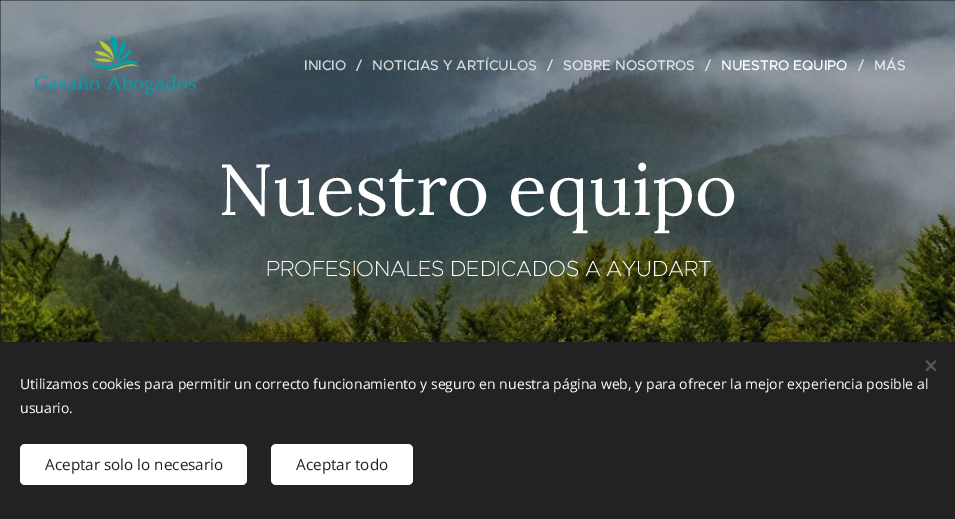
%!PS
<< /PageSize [955 519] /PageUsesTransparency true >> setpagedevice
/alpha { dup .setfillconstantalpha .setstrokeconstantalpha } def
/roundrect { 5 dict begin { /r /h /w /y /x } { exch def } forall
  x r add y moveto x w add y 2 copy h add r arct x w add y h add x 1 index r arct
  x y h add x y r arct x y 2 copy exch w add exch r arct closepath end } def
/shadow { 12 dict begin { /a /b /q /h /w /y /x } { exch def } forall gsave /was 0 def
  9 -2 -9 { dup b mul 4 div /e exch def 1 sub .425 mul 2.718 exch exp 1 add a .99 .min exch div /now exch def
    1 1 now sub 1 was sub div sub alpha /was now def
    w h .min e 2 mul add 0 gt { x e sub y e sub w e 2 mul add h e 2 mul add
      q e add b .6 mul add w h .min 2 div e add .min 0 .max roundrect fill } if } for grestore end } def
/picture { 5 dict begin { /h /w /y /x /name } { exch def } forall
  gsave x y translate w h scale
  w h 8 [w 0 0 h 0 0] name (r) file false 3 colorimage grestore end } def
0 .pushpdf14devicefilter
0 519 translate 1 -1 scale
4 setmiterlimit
0.106 setgray
0 0 955 519 rectfill
(img2.rgb) 0 0 955 342 picture
(img1.rgb) 35 35 161 60 picture
/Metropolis-Medium [14 0 0 -14 0 0] selectfont
0.843 0.855 0.867 setrgbcolor
304 70 moveto (INICIO) show
356 70 moveto (/) show
372 70 moveto (NOTICIAS Y ARTÍCULOS) show
0.886 0.898 0.906 setrgbcolor
547 70 moveto (/) show
563 70 moveto (SOBRE NOSOTROS) show
705 70 moveto (/) show
1 setgray
721 70 moveto (NUESTRO EQUIPO) show
0.886 0.898 0.906 setrgbcolor
858 70 moveto (/) show
0.91 0.918 0.922 setrgbcolor
874 70 moveto (MÁS) show
/Lora-Regular [72 0 0 -72 0 0] selectfont
1 setgray
218 215 moveto (Nuestro equipo) show
/Metropolis-ExtraLight [22 0 0 -22 0 0] selectfont
266 276 moveto -1 0 32 (PROFESIONALES DEDICADOS A AYUDART) widthshow
0 setgray
0 342 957 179 0 12.5 0.33 shadow
0.133 setgray
0 342 955 177 rectfill
0.333 setgray
newpath 925.5 370 moveto 935 360 lineto 936.5 361.5 lineto 927 371.5 lineto closepath fill
newpath 927 360 moveto 936.5 370 lineto 935 371.5 lineto 925.5 361.5 lineto closepath fill
/OpenSans-Regular [14 0 0 -14 0 0] selectfont
1 setgray
20 389 moveto (Utilizamos cookies para permitir un correcto funcionamiento y seguro en nuestra página web, y para ofrecer la mejor experiencia posible al) show
20 413 moveto (usuario.) show
20 444 227 41 5 roundrect fill
/OpenSans-Regular [15.25 0 0 -15.25 0 0] selectfont
0.133 setgray
45 470 moveto (Aceptar solo lo necesario) show
1 setgray
271 444 142 41 5 roundrect fill
0.133 setgray
296 470 moveto (Aceptar todo) show
.poppdf14devicefilter showpage
